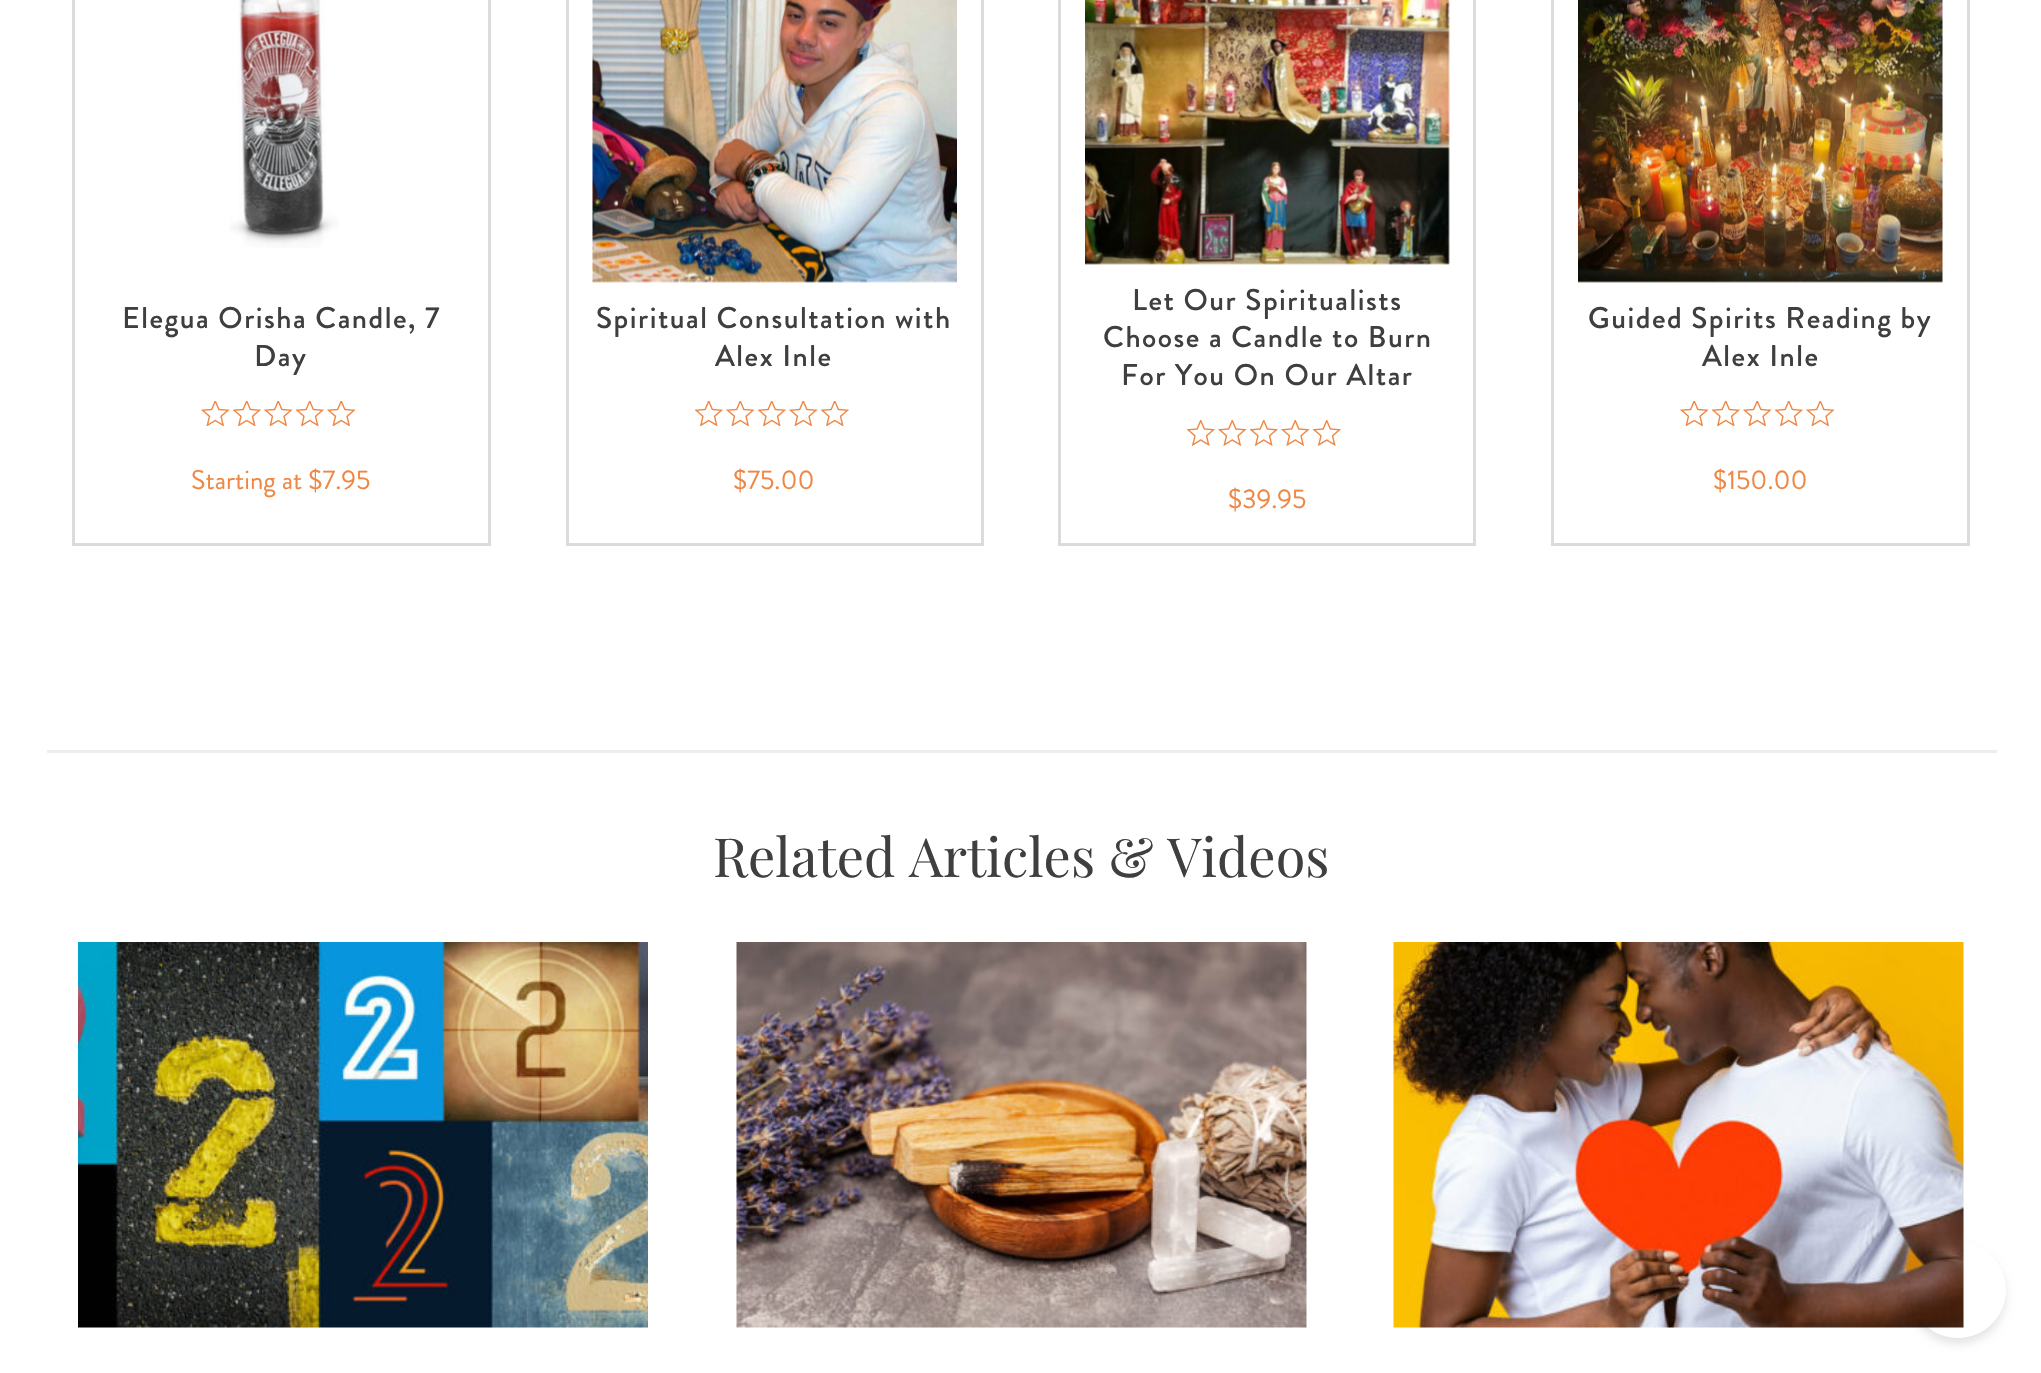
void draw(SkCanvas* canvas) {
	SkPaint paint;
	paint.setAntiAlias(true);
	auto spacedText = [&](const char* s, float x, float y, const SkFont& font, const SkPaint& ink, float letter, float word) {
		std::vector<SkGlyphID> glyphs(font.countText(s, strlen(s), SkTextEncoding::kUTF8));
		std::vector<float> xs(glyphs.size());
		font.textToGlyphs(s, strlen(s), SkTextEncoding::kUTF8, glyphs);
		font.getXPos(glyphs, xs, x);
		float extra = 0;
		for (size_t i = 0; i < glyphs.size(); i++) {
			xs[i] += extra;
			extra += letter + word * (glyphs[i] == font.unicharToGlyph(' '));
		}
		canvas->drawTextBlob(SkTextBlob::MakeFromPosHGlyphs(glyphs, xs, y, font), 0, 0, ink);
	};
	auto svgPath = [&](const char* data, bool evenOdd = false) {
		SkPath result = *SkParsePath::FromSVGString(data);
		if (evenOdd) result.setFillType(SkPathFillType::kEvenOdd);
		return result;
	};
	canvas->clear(0xffffffff);
	paint.setStroke(true);
	paint.setStrokeWidth(3);
	paint.setColor(0xffdbdbdb);
	canvas->drawRect(SkRect::MakeXYWH(73.5, -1.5, 416, 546), paint);
	canvas->drawImageRect(SkImages::DeferredFromEncodedData(SkData::MakeFromFileName("img1.png")), SkRect::MakeXYWH(229, 0, 110, 248), SkSamplingOptions());
	SkFont f1(fontMgr->matchFamilyStyle("Brandon Grotesque", SkFontStyle(500, SkFontStyle::kNormal_Width, SkFontStyle::kUpright_Slant)), 30);
	f1.setSubpixel(true);
	paint.setStroke(false);
	paint.setColor(0xff3f3f3f);
	spacedText("Elegua Orisha Candle, 7", 122, 328, f1, paint, 1.5, 0);
	spacedText("Day", 254, 366, f1, paint, 1.5, 0);
	canvas->drawImageRect(SkImages::DeferredFromEncodedData(SkData::MakeFromFileName("img2.png")), SkRect::MakeXYWH(201, 401, 29, 25), SkSamplingOptions());
	canvas->drawImageRect(SkImages::DeferredFromEncodedData(SkData::MakeFromFileName("img3.png")), SkRect::MakeXYWH(233, 401, 28, 25), SkSamplingOptions());
	canvas->drawImageRect(SkImages::DeferredFromEncodedData(SkData::MakeFromFileName("img2.png")), SkRect::MakeXYWH(264, 401, 29, 25), SkSamplingOptions());
	canvas->drawImageRect(SkImages::DeferredFromEncodedData(SkData::MakeFromFileName("img3.png")), SkRect::MakeXYWH(296, 401, 28, 25), SkSamplingOptions());
	canvas->drawImageRect(SkImages::DeferredFromEncodedData(SkData::MakeFromFileName("img2.png")), SkRect::MakeXYWH(327, 401, 29, 25), SkSamplingOptions());
	SkFont f2(fontMgr->matchFamilyStyle("Brandon Grotesque", SkFontStyle::Normal()), 27);
	f2.setSubpixel(true);
	paint.setColor(0xffee8743);
	canvas->drawString("Starting at $7.95", 191, 489, f2, paint);
	paint.setStroke(true);
	paint.setColor(0xffdbdbdb);
	canvas->drawRect(SkRect::MakeXYWH(567.5, -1.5, 415, 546), paint);
	canvas->drawImageRect(SkImages::DeferredFromEncodedData(SkData::MakeFromFileName("img4.png")), SkRect::MakeXYWH(592, 0, 365, 283), SkSamplingOptions());
	paint.setStroke(false);
	paint.setColor(0xff3f3f3f);
	spacedText("Spiritual Consultation with", 596, 328, f1, paint, 1.5, 0);
	spacedText("Alex Inle", 715, 366, f1, paint, 1.5, 0);
	canvas->drawImageRect(SkImages::DeferredFromEncodedData(SkData::MakeFromFileName("img3.png")), SkRect::MakeXYWH(695, 401, 28, 25), SkSamplingOptions());
	canvas->drawImageRect(SkImages::DeferredFromEncodedData(SkData::MakeFromFileName("img2.png")), SkRect::MakeXYWH(726, 401, 29, 25), SkSamplingOptions());
	canvas->drawImageRect(SkImages::DeferredFromEncodedData(SkData::MakeFromFileName("img3.png")), SkRect::MakeXYWH(758, 401, 28, 25), SkSamplingOptions());
	canvas->drawImageRect(SkImages::DeferredFromEncodedData(SkData::MakeFromFileName("img2.png")), SkRect::MakeXYWH(789, 401, 29, 25), SkSamplingOptions());
	canvas->drawImageRect(SkImages::DeferredFromEncodedData(SkData::MakeFromFileName("img3.png")), SkRect::MakeXYWH(821, 401, 28, 25), SkSamplingOptions());
	paint.setColor(0xffee8743);
	canvas->drawString("$75.00", 733, 489, f2, paint);
	paint.setStroke(true);
	paint.setColor(0xffdbdbdb);
	canvas->drawRect(SkRect::MakeXYWH(1059.5, -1.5, 415, 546), paint);
	canvas->drawImageRect(SkImages::DeferredFromEncodedData(SkData::MakeFromFileName("img5.png")), SkRect::MakeXYWH(1085, 0, 365, 265), SkSamplingOptions());
	paint.setStroke(false);
	paint.setColor(0xff3f3f3f);
	spacedText("Let Our Spiritualists", 1132, 310, f1, paint, 1.5, 0);
	spacedText("Choose a Candle to Burn", 1103, 347, f1, paint, 1.5, 0);
	spacedText("For You On Our Altar", 1121, 385, f1, paint, 1.5, 0);
	canvas->drawImageRect(SkImages::DeferredFromEncodedData(SkData::MakeFromFileName("img6.png")), SkRect::MakeXYWH(1187, 420, 28, 26), SkSamplingOptions());
	canvas->drawImageRect(SkImages::DeferredFromEncodedData(SkData::MakeFromFileName("img7.png")), SkRect::MakeXYWH(1218, 420, 29, 26), SkSamplingOptions());
	canvas->drawImageRect(SkImages::DeferredFromEncodedData(SkData::MakeFromFileName("img6.png")), SkRect::MakeXYWH(1250, 420, 28, 26), SkSamplingOptions());
	canvas->drawImageRect(SkImages::DeferredFromEncodedData(SkData::MakeFromFileName("img7.png")), SkRect::MakeXYWH(1281, 420, 29, 26), SkSamplingOptions());
	canvas->drawImageRect(SkImages::DeferredFromEncodedData(SkData::MakeFromFileName("img6.png")), SkRect::MakeXYWH(1313, 420, 28, 26), SkSamplingOptions());
	paint.setColor(0xffee8743);
	canvas->drawString("$39.95", 1228, 508, f2, paint);
	paint.setStroke(true);
	paint.setColor(0xffdbdbdb);
	canvas->drawRect(SkRect::MakeXYWH(1552.5, -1.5, 416, 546), paint);
	canvas->drawImageRect(SkImages::DeferredFromEncodedData(SkData::MakeFromFileName("img8.png")), SkRect::MakeXYWH(1578, 0, 365, 283), SkSamplingOptions());
	paint.setStroke(false);
	paint.setColor(0xff3f3f3f);
	spacedText("Guided Spirits Reading by", 1588, 328, f1, paint, 1.5, 0);
	spacedText("Alex Inle", 1702, 366, f1, paint, 1.5, 0);
	canvas->drawImageRect(SkImages::DeferredFromEncodedData(SkData::MakeFromFileName("img2.png")), SkRect::MakeXYWH(1680, 401, 29, 25), SkSamplingOptions());
	canvas->drawImageRect(SkImages::DeferredFromEncodedData(SkData::MakeFromFileName("img3.png")), SkRect::MakeXYWH(1712, 401, 28, 25), SkSamplingOptions());
	canvas->drawImageRect(SkImages::DeferredFromEncodedData(SkData::MakeFromFileName("img2.png")), SkRect::MakeXYWH(1743, 401, 29, 25), SkSamplingOptions());
	canvas->drawImageRect(SkImages::DeferredFromEncodedData(SkData::MakeFromFileName("img3.png")), SkRect::MakeXYWH(1775, 401, 28, 25), SkSamplingOptions());
	canvas->drawImageRect(SkImages::DeferredFromEncodedData(SkData::MakeFromFileName("img2.png")), SkRect::MakeXYWH(1806, 401, 29, 25), SkSamplingOptions());
	paint.setColor(0xffee8743);
	canvas->drawString("$150.00", 1713, 489, f2, paint);
	paint.setColor(0xffededed);
	canvas->drawRect(SkRect::MakeXYWH(47, 750, 1950, 3), paint);
	SkFont f3(fontMgr->matchFamilyStyle("Playfair Display", SkFontStyle::Normal()), 54);
	f3.setSubpixel(true);
	paint.setColor(0xff3f3f3f);
	canvas->drawString("Related Articles & Videos", 713, 877, f3, paint);
	canvas->drawImageRect(SkImages::DeferredFromEncodedData(SkData::MakeFromFileName("img9.png")), SkRect::MakeXYWH(78, 942, 570, 386), SkSamplingOptions());
	canvas->drawImageRect(SkImages::DeferredFromEncodedData(SkData::MakeFromFileName("img10.png")), SkRect::MakeXYWH(736, 942, 571, 386), SkSamplingOptions());
	canvas->drawImageRect(SkImages::DeferredFromEncodedData(SkData::MakeFromFileName("img11.png")), SkRect::MakeXYWH(1393, 942, 571, 386), SkSamplingOptions());
	canvas->save();
	canvas->clipPath(svgPath("M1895 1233H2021V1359H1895ZM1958 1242C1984.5 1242 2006 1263.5 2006 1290C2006 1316.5 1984.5 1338 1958 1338C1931.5 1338 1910 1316.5 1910 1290C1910 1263.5 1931.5 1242 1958 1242Z", true), true);
	paint.setColor(0x1a000000);
	paint.setMaskFilter(SkMaskFilter::MakeBlur(kNormal_SkBlurStyle, 4.5));
	canvas->drawRoundRect(SkRect::MakeXYWH(1910, 1248, 96, 96), 48, 48, paint);
	paint.setMaskFilter(nullptr);
	canvas->restore();
}
